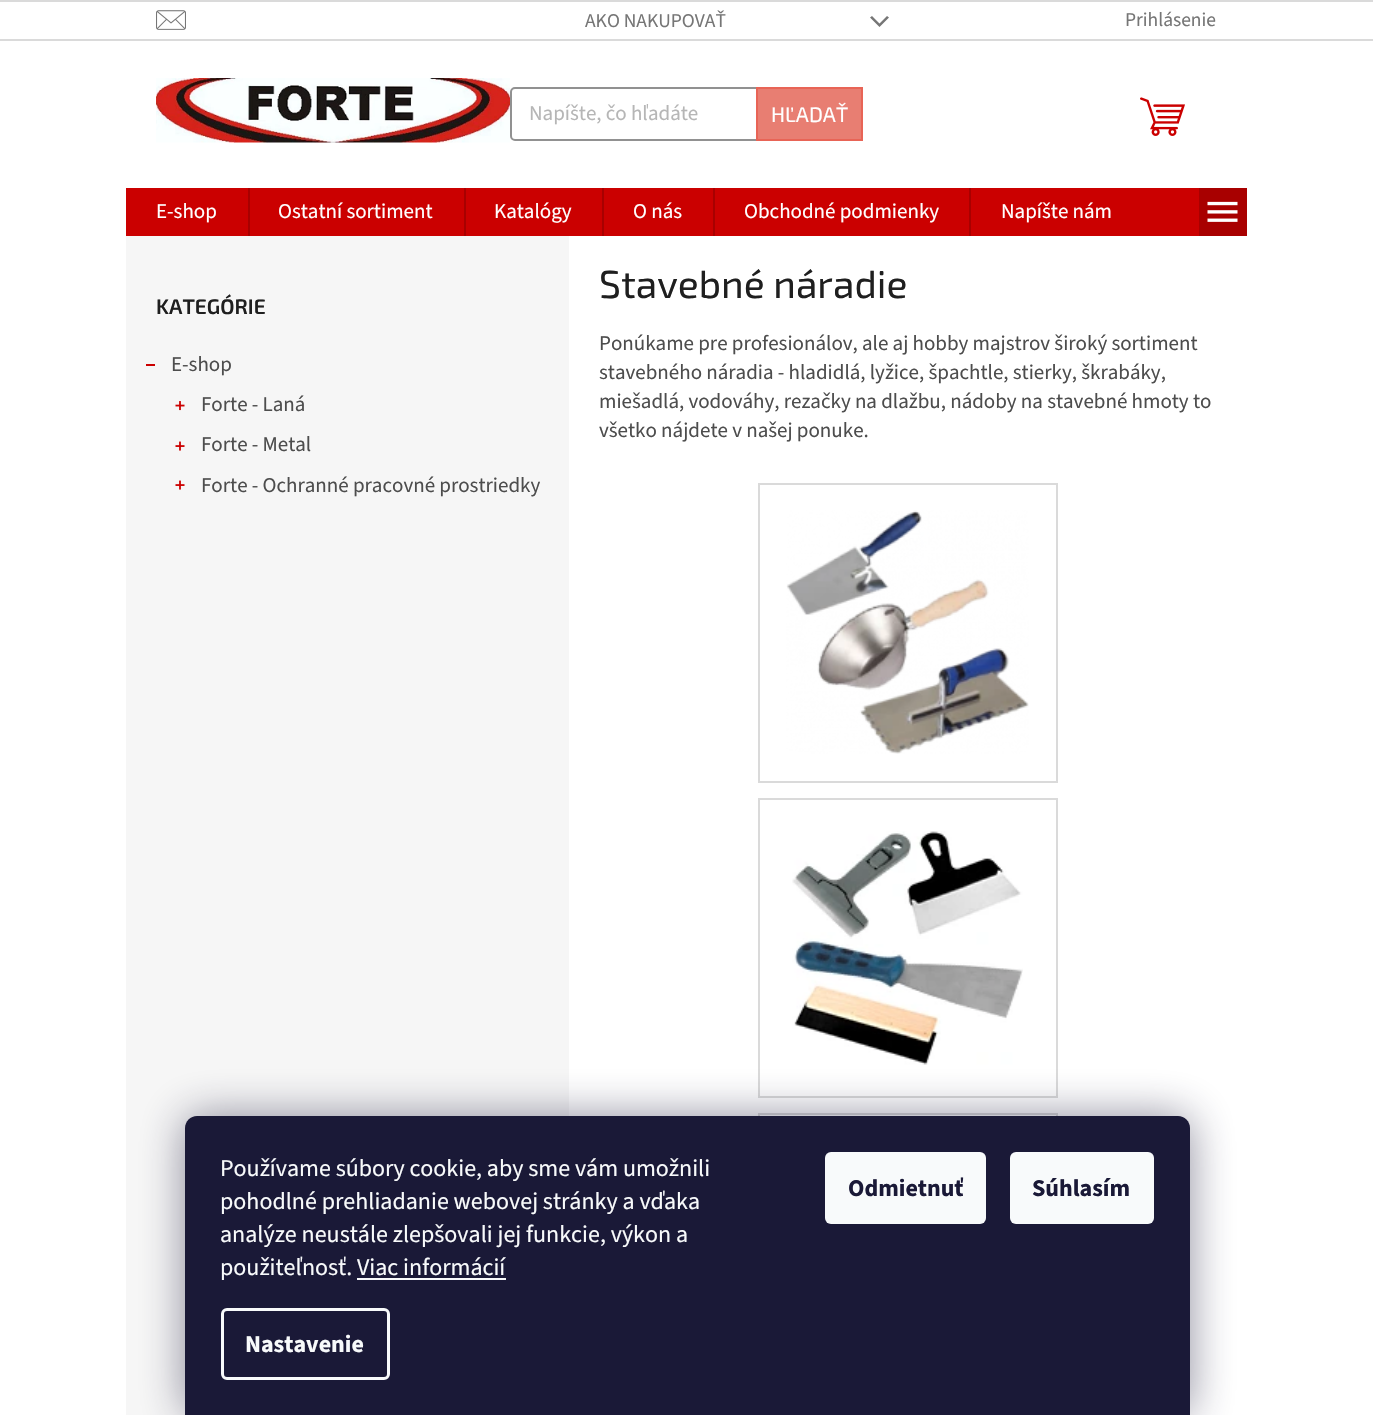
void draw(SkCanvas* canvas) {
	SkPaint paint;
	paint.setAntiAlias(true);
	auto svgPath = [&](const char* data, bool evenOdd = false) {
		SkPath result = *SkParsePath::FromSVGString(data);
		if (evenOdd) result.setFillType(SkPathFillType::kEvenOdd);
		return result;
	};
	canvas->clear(0xffffffff);
	paint.setColor(0xffdadada);
	canvas->drawRect(SkRect::MakeXYWH(0, 0, 1373, 2), paint);
	canvas->drawRect(SkRect::MakeXYWH(0, 39, 1373, 2), paint);
	canvas->drawImageRect(SkImages::DeferredFromEncodedData(SkData::MakeFromFileName("img1.png")), SkRect::MakeXYWH(156, 10, 30, 20), SkSamplingOptions());
	SkFont f1(fontMgr->matchFamilyStyle("Source Sans 3", SkFontStyle::Normal()), 19.5);
	f1.setSubpixel(true);
	paint.setColor(0xff767676);
	canvas->drawString("AKO NAKUPOVAŤ", 585, 27, f1, paint);
	canvas->drawPath(svgPath("M870 17.5L872 16L879.5 23.5L887 16L889 17.5L879.5 27Z"), paint);
	canvas->drawString("Prihlásenie", 1125, 26, f1, paint);
	canvas->drawImageRect(SkImages::DeferredFromEncodedData(SkData::MakeFromFileName("img2.png")), SkRect::MakeXYWH(156, 78, 354, 65), SkSamplingOptions());
	paint.setStroke(true);
	paint.setStrokeWidth(2);
	paint.setColor(0xff919191);
	canvas->drawRoundRect(SkRect::MakeXYWH(511, 88, 351, 52), 4, 4, paint);
	SkFont f2(fontMgr->matchFamilyStyle("Source Sans 3", SkFontStyle::Normal()), 21);
	f2.setSubpixel(true);
	paint.setStroke(false);
	paint.setColor(0xffb6b6b6);
	canvas->drawString("Napíšte, čo hľadáte", 529, 120, f2, paint);
	paint.setColor(0xffe87e72);
	canvas->drawRect(SkRect::MakeXYWH(757, 88, 105, 52), paint);
	paint.setStroke(true);
	paint.setColor(0xffe86456);
	canvas->drawRect(SkRect::MakeXYWH(757, 88, 105, 52), paint);
	SkFont f3(fontMgr->matchFamilyStyle("Exo 2", SkFontStyle::Normal()), 21);
	f3.setSubpixel(true);
	paint.setStroke(false);
	paint.setColor(0xffffffff);
	canvas->drawString("HĽADAŤ", 771, 122, f3, paint);
	canvas->drawImageRect(SkImages::DeferredFromEncodedData(SkData::MakeFromFileName("img3.png")), SkRect::MakeXYWH(1140, 97, 45, 39), SkSamplingOptions());
	paint.setColor(0xffcb0000);
	canvas->drawRect(SkRect::MakeXYWH(126, 188, 1073, 48), paint);
	paint.setColor(0xffffffff);
	canvas->drawString("E-shop", 156, 218, f2, paint);
	paint.setColor(0xffa80000);
	canvas->drawRect(SkRect::MakeXYWH(248, 188, 2, 48), paint);
	paint.setColor(0xffffffff);
	canvas->drawString("Ostatní sortiment", 278, 218, f2, paint);
	paint.setColor(0xffa80000);
	canvas->drawRect(SkRect::MakeXYWH(464, 188, 2, 48), paint);
	paint.setColor(0xffffffff);
	canvas->drawString("Katalógy", 494, 218, f2, paint);
	paint.setColor(0xffa80000);
	canvas->drawRect(SkRect::MakeXYWH(602, 188, 2, 48), paint);
	paint.setColor(0xffffffff);
	canvas->drawString("O nás", 633, 218, f2, paint);
	paint.setColor(0xffa80000);
	canvas->drawRect(SkRect::MakeXYWH(713, 188, 2, 48), paint);
	paint.setColor(0xffffffff);
	canvas->drawString("Obchodné podmienky", 744, 218, f2, paint);
	paint.setColor(0xffa80000);
	canvas->drawRect(SkRect::MakeXYWH(969, 188, 2, 48), paint);
	paint.setColor(0xffffffff);
	canvas->drawString("Napíšte nám", 1001, 218, f2, paint);
	paint.setColor(0xffa80000);
	canvas->drawRect(SkRect::MakeXYWH(1199, 188, 48, 48), paint);
	canvas->drawImageRect(SkImages::DeferredFromEncodedData(SkData::MakeFromFileName("img4.png")), SkRect::MakeXYWH(1207, 201, 31, 21), SkSamplingOptions());
	paint.setColor(0xfff6f6f6);
	canvas->drawRect(SkRect::MakeXYWH(126, 236, 443, 1179), paint);
	SkFont f4(fontMgr->matchFamilyStyle("Exo 2", SkFontStyle(600, SkFontStyle::kNormal_Width, SkFontStyle::kUpright_Slant)), 21);
	f4.setSubpixel(true);
	paint.setColor(0xff1f1f1f);
	canvas->drawString("KATEGÓRIE", 156, 314, f4, paint);
	paint.setColor(0xffcb0000);
	canvas->drawRect(SkRect::MakeXYWH(146, 364, 9, 2), paint);
	paint.setColor(0xff4d4d4d);
	canvas->drawString("E-shop", 171, 371, f2, paint);
	canvas->drawImageRect(SkImages::DeferredFromEncodedData(SkData::MakeFromFileName("img5.png")), SkRect::MakeXYWH(175, 401, 10, 10), SkSamplingOptions());
	canvas->drawString("Forte - Laná", 201, 411, f2, paint);
	canvas->drawImageRect(SkImages::DeferredFromEncodedData(SkData::MakeFromFileName("img6.png")), SkRect::MakeXYWH(175, 441, 10, 10), SkSamplingOptions());
	canvas->drawString("Forte - Metal", 201, 451, f2, paint);
	canvas->drawImageRect(SkImages::DeferredFromEncodedData(SkData::MakeFromFileName("img6.png")), SkRect::MakeXYWH(175, 480, 10, 10), SkSamplingOptions());
	canvas->drawString("Forte - Ochranné pracovné prostriedky", 201, 492, f2, paint);
	SkFont f5(fontMgr->matchFamilyStyle("Exo 2", SkFontStyle::Normal()), 39);
	f5.setSubpixel(true);
	paint.setColor(0xff1f1f1f);
	canvas->drawString("Stavebné náradie", 599, 298, f5, paint);
	paint.setColor(0xff4d4d4d);
	canvas->drawString("Ponúkame pre profesionálov, ale aj hobby majstrov široký sortiment", 599, 350, f2, paint);
	canvas->drawString("stavebného náradia - hladidlá, lyžice, špachtle, stierky, škrabáky,", 599, 379, f2, paint);
	canvas->drawString("miešadlá, vodováhy, rezačky na dlažbu, nádoby na stavebné hmoty to", 599, 408, f2, paint);
	canvas->drawString("všetko nájdete v našej ponuke.", 599, 437, f2, paint);
	paint.setStroke(true);
	paint.setColor(0xffdadada);
	canvas->drawRect(SkRect::MakeXYWH(759, 484, 298, 298), paint);
	canvas->drawImageRect(SkImages::DeferredFromEncodedData(SkData::MakeFromFileName("img7.png")), SkRect::MakeXYWH(786, 510, 243, 244), SkSamplingOptions());
	canvas->drawRect(SkRect::MakeXYWH(759, 799, 298, 298), paint);
	canvas->drawImageRect(SkImages::DeferredFromEncodedData(SkData::MakeFromFileName("img8.png")), SkRect::MakeXYWH(792, 831, 231, 234), SkSamplingOptions());
	canvas->drawRect(SkRect::MakeXYWH(759, 1114, 298, 298), paint);
	paint.setStroke(false);
	paint.setColor(0x801b1939);
	paint.setMaskFilter(SkMaskFilter::MakeBlur(kNormal_SkBlurStyle, 22.5));
	canvas->drawRoundRect(SkRect::MakeXYWH(185, 1116, 1005, 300), 12, 12, paint);
	paint.setMaskFilter(nullptr);
	paint.setColor(0xff1a1937);
	canvas->drawPath(svgPath("M197 1116H1178C1184.5 1116 1190 1121.5 1190 1128V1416H185V1128C185 1121.5 190.5 1116 197 1116Z"), paint);
	SkFont f6(fontMgr->matchFamilyStyle("Source Sans 3", SkFontStyle::Normal()), 24);
	f6.setSubpixel(true);
	paint.setColor(0xfff8fafb);
	canvas->drawString("Používame súbory cookie, aby sme vám umožnili", 220, 1176, f6, paint);
	canvas->drawString("pohodlné prehliadanie webovej stránky a vďaka", 220, 1209, f6, paint);
	canvas->drawString("analýze neustále zlepšovali jej funkcie, výkon a", 220, 1242, f6, paint);
	canvas->drawString("použiteľnosť. Viac informácií", 220, 1275, f6, paint);
	canvas->drawRect(SkRect::MakeXYWH(357, 1278, 149, 2), paint);
	paint.setStroke(true);
	paint.setStrokeWidth(3);
	canvas->drawRoundRect(SkRect::MakeXYWH(222.5, 1309.5, 166, 69), 4.5, 4.5, paint);
	SkFont f7(fontMgr->matchFamilyStyle("Source Sans 3", SkFontStyle::Bold()), 24);
	f7.setSubpixel(true);
	paint.setStroke(false);
	canvas->drawString("Nastavenie", 245, 1352, f7, paint);
	canvas->drawRoundRect(SkRect::MakeXYWH(825, 1152, 161, 72), 6, 6, paint);
	paint.setColor(0xff1a1937);
	canvas->drawString("Odmietnuť", 848, 1196, f7, paint);
	paint.setColor(0xfff8fafb);
	canvas->drawRoundRect(SkRect::MakeXYWH(1010, 1152, 144, 72), 6, 6, paint);
	paint.setColor(0xff1a1937);
	canvas->drawString("Súhlasím", 1032, 1196, f7, paint);
}
